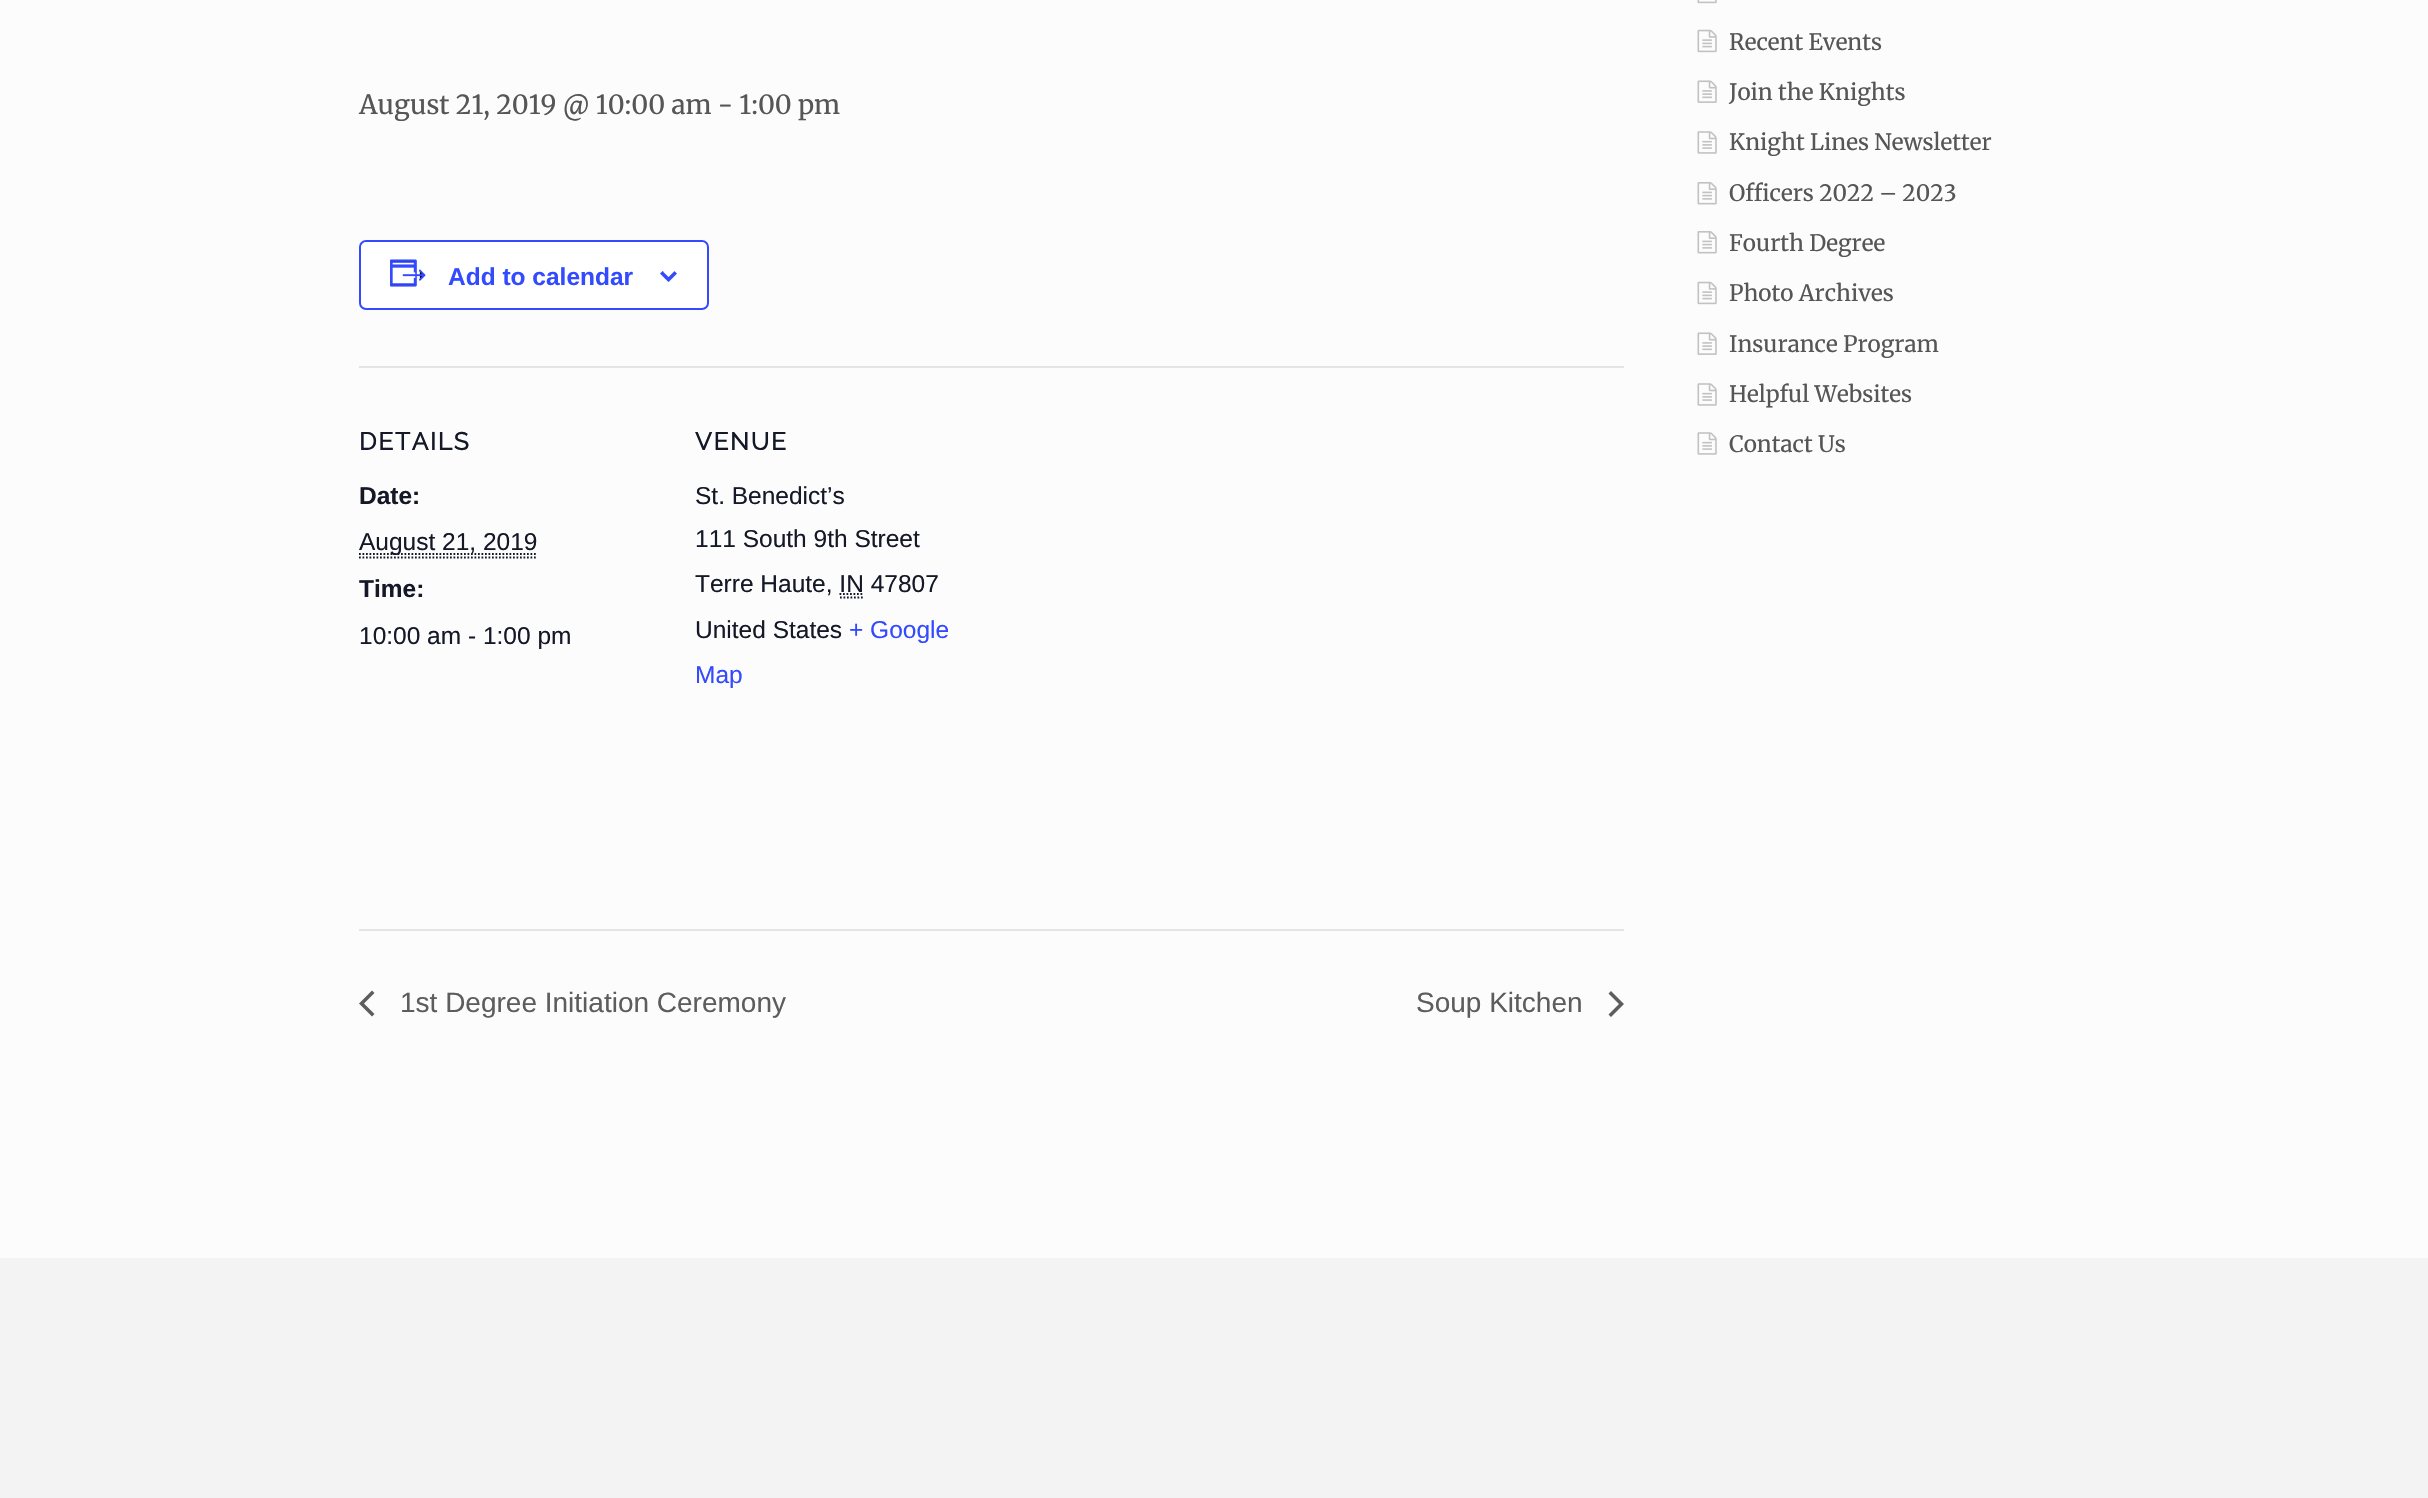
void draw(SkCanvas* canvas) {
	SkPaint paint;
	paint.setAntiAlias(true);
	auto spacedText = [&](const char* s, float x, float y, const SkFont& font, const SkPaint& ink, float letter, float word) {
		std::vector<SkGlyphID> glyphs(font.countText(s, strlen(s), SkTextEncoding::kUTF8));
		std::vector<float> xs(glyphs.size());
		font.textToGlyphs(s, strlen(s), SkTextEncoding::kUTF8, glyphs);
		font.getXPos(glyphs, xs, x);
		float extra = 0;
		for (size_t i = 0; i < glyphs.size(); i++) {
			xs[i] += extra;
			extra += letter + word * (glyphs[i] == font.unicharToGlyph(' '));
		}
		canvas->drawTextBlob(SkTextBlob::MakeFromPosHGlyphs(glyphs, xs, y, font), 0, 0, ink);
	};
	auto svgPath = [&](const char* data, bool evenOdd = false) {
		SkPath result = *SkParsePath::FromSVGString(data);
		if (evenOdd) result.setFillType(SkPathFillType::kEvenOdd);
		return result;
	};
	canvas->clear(0xfffcfcfc);
	SkFont f1(fontMgr->matchFamilyStyle("Merriweather", SkFontStyle(300, SkFontStyle::kNormal_Width, SkFontStyle::kUpright_Slant)), 26.25);
	f1.setSubpixel(true);
	paint.setColor(0xff565656);
	canvas->drawString("August 21, 2019 @ 10:00 am - 1:00 pm", 359, 114, f1, paint);
	paint.setColor(0xffffffff);
	canvas->drawRoundRect(SkRect::MakeXYWH(360, 241, 348, 68), 6, 6, paint);
	paint.setStroke(true);
	paint.setStrokeWidth(2);
	paint.setColor(0xff334aff);
	canvas->drawRoundRect(SkRect::MakeXYWH(360, 241, 348, 68), 6, 6, paint);
	canvas->drawImageRect(SkImages::DeferredFromEncodedData(SkData::MakeFromFileName("img1.png")), SkRect::MakeXYWH(390, 259, 36, 28), SkSamplingOptions());
	SkFont f2(fontMgr->matchFamilyStyle("Liberation Sans", SkFontStyle::Bold()), 24.5);
	f2.setSubpixel(true);
	paint.setStroke(false);
	canvas->drawString("Add to calendar", 448, 285, f2, paint);
	canvas->drawImageRect(SkImages::DeferredFromEncodedData(SkData::MakeFromFileName("img2.png")), SkRect::MakeXYWH(660, 271, 17, 11), SkSamplingOptions());
	paint.setColor(0xffe4e4e4);
	canvas->drawRect(SkRect::MakeXYWH(359, 366, 1265, 2), paint);
	SkFont f3(fontMgr->matchFamilyStyle("Raleway", SkFontStyle::Bold()), 24.5);
	f3.setSubpixel(true);
	paint.setColor(0xff141827);
	spacedText("DETAILS", 359, 450, f3, paint, 1.75, 0);
	canvas->drawString("Date:", 359, 504, f2, paint);
	paint.setStroke(true);
	paint.setStrokeWidth(1.8);
	paint.setPathEffect(SkDashPathEffect::Make({{1.75f, 1.75f}}, 0));
	canvas->drawPath(svgPath("M359 554H537.5"), paint);
	paint.setPathEffect(nullptr);
	SkFont f4(fontMgr->matchFamilyStyle("Liberation Sans", SkFontStyle::Normal()), 24.5);
	f4.setSubpixel(true);
	paint.setStroke(false);
	canvas->drawString("August 21, 2019", 359, 550, f4, paint);
	paint.setStroke(true);
	paint.setPathEffect(SkDashPathEffect::Make({{1.75f, 1.75f}}, 0));
	canvas->drawPath(svgPath("M359 557.5H537"), paint);
	paint.setPathEffect(nullptr);
	paint.setStroke(false);
	canvas->drawString("Time:", 359, 597, f2, paint);
	canvas->drawString("10:00 am - 1:00 pm", 359, 644, f4, paint);
	spacedText("VENUE", 695, 450, f3, paint, 1.75, 0);
	canvas->drawString("St. Benedict’s", 695, 504, f4, paint);
	canvas->drawString("111 South 9th Street", 695, 547, f4, paint);
	canvas->drawString("Terre Haute, IN 47807", 695, 592, f4, paint);
	paint.setStroke(true);
	paint.setPathEffect(SkDashPathEffect::Make({{1.75f, 1.75f}}, 0));
	canvas->drawPath(svgPath("M840 597.5H864.5M839.5 594H864"), paint);
	paint.setPathEffect(nullptr);
	paint.setStroke(false);
	canvas->drawString("United States", 695, 638, f4, paint);
	paint.setColor(0xff334aff);
	canvas->drawString("+ Google", 849, 638, f4, paint);
	canvas->drawString("Map", 695, 683, f4, paint);
	paint.setColor(0xffe4e4e4);
	canvas->drawRect(SkRect::MakeXYWH(359, 929, 1265, 2), paint);
	paint.setColor(0xff5d5d5d);
	canvas->drawPath(svgPath("M374.5 1014L372 1016.5L359 1003.5L372 990.5L374.5 993L364 1003.5Z"), paint);
	SkFont f5(fontMgr->matchFamilyStyle("Liberation Sans", SkFontStyle::Normal()), 28);
	f5.setSubpixel(true);
	canvas->drawString("1st Degree Initiation Ceremony", 400, 1012, f5, paint);
	canvas->drawString("Soup Kitchen", 1416, 1012, f5, paint);
	canvas->drawPath(svgPath("M1608.5 993.5L1611 991L1624 1004L1611 1017L1608.5 1014.5L1619 1004Z"), paint);
	canvas->drawImageRect(SkImages::DeferredFromEncodedData(SkData::MakeFromFileName("img3.png")), SkRect::MakeXYWH(1697, 0, 20, 4), SkSamplingOptions());
	canvas->drawImageRect(SkImages::DeferredFromEncodedData(SkData::MakeFromFileName("img4.png")), SkRect::MakeXYWH(1697, 29, 20, 24), SkSamplingOptions());
	SkFont f6(fontMgr->matchFamilyStyle("Merriweather", SkFontStyle(300, SkFontStyle::kNormal_Width, SkFontStyle::kUpright_Slant)), 22.5);
	f6.setSubpixel(true);
	paint.setColor(0xff565656);
	canvas->drawString("Recent Events", 1729, 50, f6, paint);
	canvas->drawImageRect(SkImages::DeferredFromEncodedData(SkData::MakeFromFileName("img5.png")), SkRect::MakeXYWH(1697, 80, 20, 23), SkSamplingOptions());
	canvas->drawString("Join the Knights", 1729, 100, f6, paint);
	canvas->drawImageRect(SkImages::DeferredFromEncodedData(SkData::MakeFromFileName("img6.png")), SkRect::MakeXYWH(1697, 131, 20, 23), SkSamplingOptions());
	canvas->drawString("Knight Lines Newsletter", 1729, 150, f6, paint);
	canvas->drawImageRect(SkImages::DeferredFromEncodedData(SkData::MakeFromFileName("img7.png")), SkRect::MakeXYWH(1697, 182, 20, 23), SkSamplingOptions());
	canvas->drawString("Officers 2022 – 2023", 1729, 201, f6, paint);
	canvas->drawImageRect(SkImages::DeferredFromEncodedData(SkData::MakeFromFileName("img7.png")), SkRect::MakeXYWH(1697, 231, 20, 23), SkSamplingOptions());
	canvas->drawString("Fourth Degree", 1729, 251, f6, paint);
	canvas->drawImageRect(SkImages::DeferredFromEncodedData(SkData::MakeFromFileName("img4.png")), SkRect::MakeXYWH(1697, 281, 20, 24), SkSamplingOptions());
	canvas->drawString("Photo Archives", 1729, 301, f6, paint);
	canvas->drawImageRect(SkImages::DeferredFromEncodedData(SkData::MakeFromFileName("img5.png")), SkRect::MakeXYWH(1697, 332, 20, 23), SkSamplingOptions());
	canvas->drawString("Insurance Program", 1729, 352, f6, paint);
	canvas->drawImageRect(SkImages::DeferredFromEncodedData(SkData::MakeFromFileName("img6.png")), SkRect::MakeXYWH(1697, 383, 20, 23), SkSamplingOptions());
	canvas->drawString("Helpful Websites", 1729, 402, f6, paint);
	canvas->drawImageRect(SkImages::DeferredFromEncodedData(SkData::MakeFromFileName("img6.png")), SkRect::MakeXYWH(1697, 432, 20, 23), SkSamplingOptions());
	canvas->drawString("Contact Us", 1729, 452, f6, paint);
	paint.setColor(0xfff3f3f3);
	canvas->drawRect(SkRect::MakeXYWH(0, 1258, 2428, 240), paint);
}
